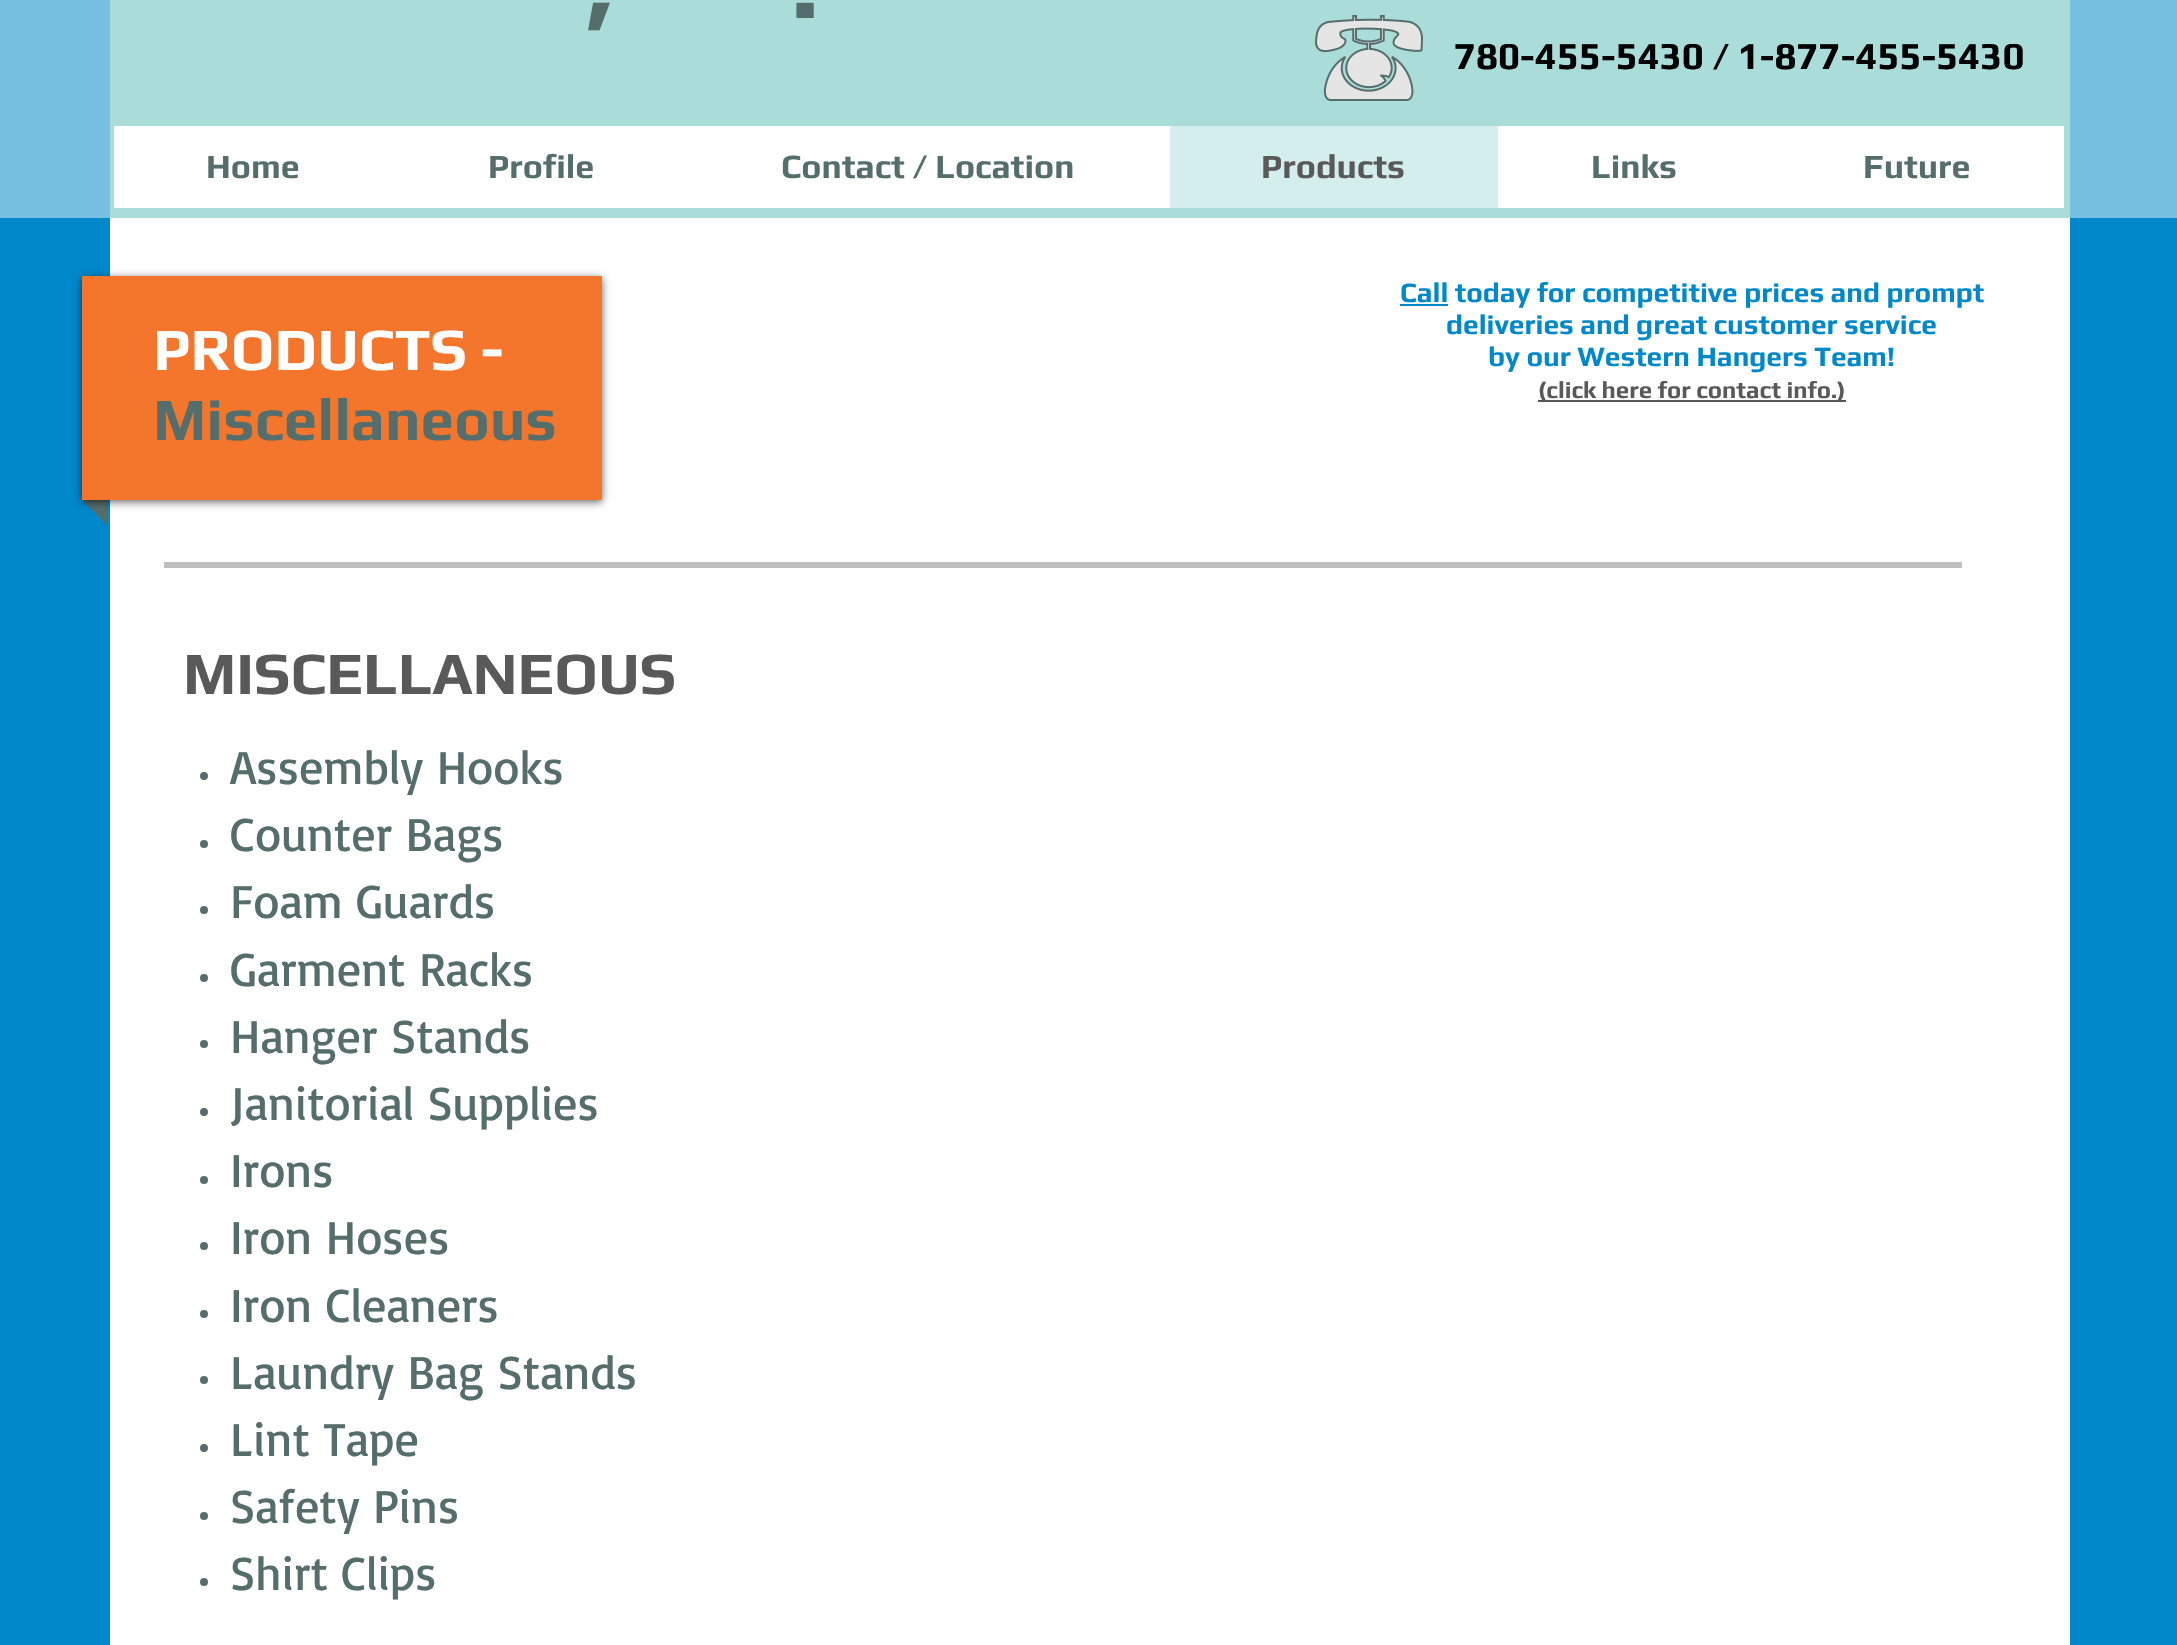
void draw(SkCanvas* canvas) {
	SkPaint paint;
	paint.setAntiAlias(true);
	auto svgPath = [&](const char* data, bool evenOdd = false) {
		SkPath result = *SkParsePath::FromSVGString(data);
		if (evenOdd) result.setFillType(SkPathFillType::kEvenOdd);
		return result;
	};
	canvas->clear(0xff0088cb);
	paint.setColor(0xff78c0e1);
	canvas->drawRect(SkRect::MakeXYWH(0, 0, 2177, 218), paint);
	paint.setColor(0xffaaddd9);
	canvas->drawRect(SkRect::MakeXYWH(110, 0, 1960, 218), paint);
	SkFont f1(fontMgr->matchFamilyStyle("Play", SkFontStyle::Bold()), 110);
	f1.setSubpixel(true);
	paint.setColor(0xff556e6c);
	canvas->drawString(",", 586, 18, f1, paint);
	canvas->drawString(".", 791, 18, f1, paint);
	canvas->drawImageRect(SkImages::DeferredFromEncodedData(SkData::MakeFromFileName("img1.png")), SkRect::MakeXYWH(1315, 15, 108, 86), SkSamplingOptions());
	SkFont f2(fontMgr->matchFamilyStyle("Play", SkFontStyle::Bold()), 38);
	f2.setSubpixel(true);
	paint.setColor(0xff000000);
	canvas->drawString("780-455-5430 / 1-877-455-5430", 1454, 69, f2, paint);
	paint.setColor(0xffffffff);
	canvas->drawRect(SkRect::MakeXYWH(114, 126, 1950, 82), paint);
	SkFont f3(fontMgr->matchFamilyStyle("Play", SkFontStyle::Bold()), 34);
	f3.setSubpixel(true);
	paint.setColor(0xff556e6c);
	canvas->drawString("Home", 206, 178, f3, paint);
	canvas->drawString("Profile", 488, 178, f3, paint);
	canvas->drawString("Contact / Location", 781, 178, f3, paint);
	paint.setColor(0xffd3eeec);
	canvas->drawRect(SkRect::MakeXYWH(1170, 126, 328, 82), paint);
	paint.setColor(0xff595959);
	canvas->drawString("Products", 1261, 178, f3, paint);
	paint.setColor(0xff556e6c);
	canvas->drawString("Links", 1591, 178, f3, paint);
	canvas->drawString("Future", 1863, 178, f3, paint);
	paint.setColor(0xffffffff);
	canvas->drawRect(SkRect::MakeXYWH(110, 218, 1960, 1427), paint);
	paint.setColor(0xff556e6c);
	canvas->drawPath(svgPath("M82 500H108V526Z"), paint);
	paint.setColor(0x99000000);
	paint.setMaskFilter(SkMaskFilter::MakeBlur(kNormal_SkBlurStyle, 4));
	canvas->drawRect(SkRect::MakeXYWH(82, 278, 520, 224), paint);
	paint.setMaskFilter(nullptr);
	paint.setColor(0xfff4752c);
	canvas->drawRect(SkRect::MakeXYWH(82, 276, 520, 224), paint);
	SkFont f4(fontMgr->matchFamilyStyle("Play", SkFontStyle::Bold()), 60);
	f4.setSubpixel(true);
	paint.setColor(0xffffffff);
	canvas->drawString("PRODUCTS -", 153, 370, f4, paint);
	paint.setColor(0xff556e6c);
	canvas->drawString("Miscellaneous", 153, 440, f4, paint);
	paint.setColor(0xff0088cb);
	canvas->drawRect(SkRect::MakeXYWH(1400, 304, 48, 2), paint);
	SkFont f5(fontMgr->matchFamilyStyle("Play", SkFontStyle::Bold()), 28);
	f5.setSubpixel(true);
	canvas->drawString("Call today for competitive prices and prompt", 1400, 302, f5, paint);
	canvas->drawString("deliveries and great customer service", 1446, 334, f5, paint);
	canvas->drawString("by our Western Hangers Team!", 1488, 366, f5, paint);
	paint.setColor(0xff595959);
	canvas->drawRect(SkRect::MakeXYWH(1538, 400, 308, 2), paint);
	SkFont f6(fontMgr->matchFamilyStyle("Play", SkFontStyle::Bold()), 24);
	f6.setSubpixel(true);
	canvas->drawString("(click here for contact info.)", 1538, 398, f6, paint);
	paint.setColor(0xffbfbfbf);
	canvas->drawRect(SkRect::MakeXYWH(164, 562, 1798, 6), paint);
	paint.setColor(0xff595959);
	canvas->drawString("MISCELLANEOUS", 183, 694, f4, paint);
	paint.setColor(0xff556e6c);
	canvas->drawCircle(204, 776, 4, paint);
	SkFont f7(fontMgr->matchFamilyStyle("Basic", SkFontStyle::Normal()), 48);
	f7.setSubpixel(true);
	canvas->drawString("Assembly Hooks", 230, 784, f7, paint);
	canvas->drawCircle(204, 844, 4, paint);
	canvas->drawString("Counter Bags", 230, 851, f7, paint);
	canvas->drawCircle(204, 910, 4, paint);
	canvas->drawString("Foam Guards", 230, 918, f7, paint);
	canvas->drawCircle(204, 978, 4, paint);
	canvas->drawString("Garment Racks", 230, 986, f7, paint);
	canvas->drawCircle(204, 1044, 4, paint);
	canvas->drawString("Hanger Stands", 230, 1053, f7, paint);
	canvas->drawCircle(204, 1112, 4, paint);
	canvas->drawString("Janitorial Supplies", 230, 1120, f7, paint);
	canvas->drawCircle(204, 1180, 4, paint);
	canvas->drawString("Irons", 230, 1187, f7, paint);
	canvas->drawCircle(204, 1246, 4, paint);
	canvas->drawString("Iron Hoses", 230, 1254, f7, paint);
	canvas->drawCircle(204, 1314, 4, paint);
	canvas->drawString("Iron Cleaners", 230, 1322, f7, paint);
	canvas->drawCircle(204, 1380, 4, paint);
	canvas->drawString("Laundry Bag Stands", 230, 1389, f7, paint);
	canvas->drawCircle(204, 1448, 4, paint);
	canvas->drawString("Lint Tape", 230, 1456, f7, paint);
	canvas->drawCircle(204, 1516, 4, paint);
	canvas->drawString("Safety Pins", 230, 1523, f7, paint);
	canvas->drawCircle(204, 1582, 4, paint);
	canvas->drawString("Shirt Clips", 230, 1590, f7, paint);
}
